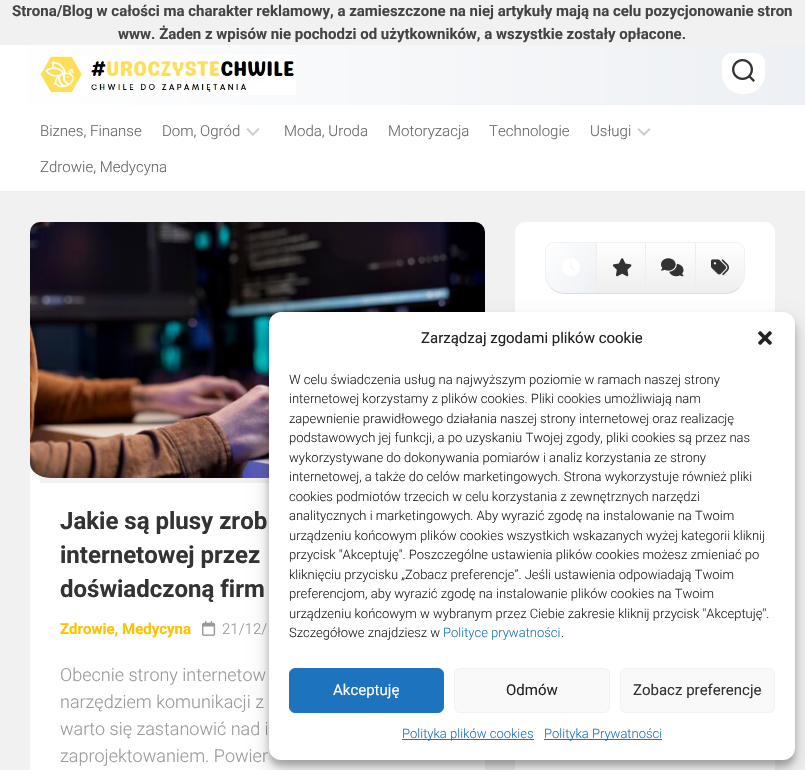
void draw(SkCanvas* canvas) {
	SkPaint paint;
	paint.setAntiAlias(true);
	auto svgPath = [&](const char* data, bool evenOdd = false) {
		SkPath result = *SkParsePath::FromSVGString(data);
		if (evenOdd) result.setFillType(SkPathFillType::kEvenOdd);
		return result;
	};
	canvas->clear(0xfff1f1f1);
	SkFont f1(fontMgr->matchFamilyStyle("Roboto", SkFontStyle::Bold()), 15);
	f1.setSubpixel(true);
	paint.setColor(0xff444444);
	canvas->drawString("Strona/Blog w całości ma charakter reklamowy, a zamieszczone na niej artykuły mają na celu pozycjonowanie stron", 12, 16, f1, paint);
	canvas->drawString("www. Żaden z wpisów nie pochodzi od użytkowników, a wszystkie zostały opłacone.", 118, 39, f1, paint);
	{
		const SkColor colors[] = {0xffffffff, 0xffedf0f4};
		const float stops[] = {0, 1};
		const SkPoint ends[] = {{0, 119}, {805, 118}};
		paint.setShader(SkGradientShader::MakeLinear(ends, colors, stops, 2, SkTileMode::kClamp));
		paint.setAlpha(255);
	}
	canvas->drawRect(SkRect::MakeXYWH(0, 45, 805, 60), paint);
	canvas->drawImageRect(SkImages::DeferredFromEncodedData(SkData::MakeFromFileName("img1.png")), SkRect::MakeXYWH(40, 55, 256, 40), SkSamplingOptions());
	paint.setShader(nullptr);
	paint.setColor(0xffffffff);
	canvas->drawPath(svgPath("M732 53H755C760.5 53 765 57.5 765 63V74C765 85 756 94 745 94H742C731 94 722 85 722 74V63C722 57.5 726.5 53 732 53Z"), paint);
	canvas->drawImageRect(SkImages::DeferredFromEncodedData(SkData::MakeFromFileName("img2.png")), SkRect::MakeXYWH(732, 59, 23, 23), SkSamplingOptions());
	canvas->drawRect(SkRect::MakeXYWH(0, 105, 805, 86), paint);
	paint.setColor(0xffeeeeee);
	canvas->drawRect(SkRect::MakeXYWH(0, 191, 805, 1), paint);
	SkFont f2(fontMgr->matchFamilyStyle("Roboto", SkFontStyle(300, SkFontStyle::kNormal_Width, SkFontStyle::kUpright_Slant)), 15);
	f2.setSubpixel(true);
	paint.setColor(0xff666666);
	canvas->drawString("Biznes, Finanse", 40, 136, f2, paint);
	canvas->drawString("Dom, Ogród", 162, 136, f2, paint);
	canvas->drawImageRect(SkImages::DeferredFromEncodedData(SkData::MakeFromFileName("img3.png")), SkRect::MakeXYWH(246, 128, 14, 8), SkSamplingOptions());
	canvas->drawString("Moda, Uroda", 284, 136, f2, paint);
	canvas->drawString("Motoryzacja", 388, 136, f2, paint);
	canvas->drawString("Technologie", 489, 136, f2, paint);
	canvas->drawString("Usługi", 590, 136, f2, paint);
	canvas->drawImageRect(SkImages::DeferredFromEncodedData(SkData::MakeFromFileName("img3.png")), SkRect::MakeXYWH(637, 128, 14, 8), SkSamplingOptions());
	canvas->drawString("Zdrowie, Medycyna", 40, 172, f2, paint);
	paint.setColor(0xffffffff);
	canvas->drawPath(svgPath("M40 222H475C480.5 222 485 226.5 485 232V770C485 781 476 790 465 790H50C39 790 30 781 30 770V232C30 226.5 34.5 222 40 222Z"), paint);
	paint.setColor(0xfff5f5f5);
	canvas->drawPath(svgPath("M40 222H475C480.5 222 485 226.5 485 232V463C485 474 476 483 465 483H50C39 483 30 474 30 463V232C30 226.5 34.5 222 40 222Z"), paint);
	paint.setColor(0xfff1f1f1);
	canvas->drawRect(SkRect::MakeXYWH(40, 478, 229, 5), paint);
	canvas->drawImageRect(SkImages::DeferredFromEncodedData(SkData::MakeFromFileName("img4.png")), SkRect::MakeXYWH(30, 222, 455, 256), SkSamplingOptions());
	SkFont f3(fontMgr->matchFamilyStyle("Roboto", SkFontStyle::Bold()), 24);
	f3.setSubpixel(true);
	paint.setColor(0xff333333);
	canvas->drawString("Jakie są plusy zrob", 60, 529, f3, paint);
	canvas->drawString("internetowej przez", 60, 563, f3, paint);
	canvas->drawString("doświadczoną firm", 60, 597, f3, paint);
	paint.setColor(0xffffc100);
	canvas->drawString("Zdrowie, Medycyna", 60, 634, f1, paint);
	canvas->drawImageRect(SkImages::DeferredFromEncodedData(SkData::MakeFromFileName("img5.png")), SkRect::MakeXYWH(202, 621, 14, 15), SkSamplingOptions());
	paint.setColor(0xff999999);
	canvas->drawString("21/12/", 222, 634, f2, paint);
	SkFont f4(fontMgr->matchFamilyStyle("Roboto", SkFontStyle(300, SkFontStyle::kNormal_Width, SkFontStyle::kUpright_Slant)), 18);
	f4.setSubpixel(true);
	canvas->drawString("Obecnie strony internetow", 60, 681, f4, paint);
	canvas->drawString("narzędziem komunikacji z", 60, 708, f4, paint);
	canvas->drawString("warto się zastanowić nad i", 60, 735, f4, paint);
	canvas->drawString("zaprojektowaniem. Powier", 60, 762, f4, paint);
	paint.setColor(0xffffffff);
	canvas->drawPath(svgPath("M525 222H765C770.5 222 775 226.5 775 232V770C775 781 766 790 755 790H535C524 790 515 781 515 770V232C515 226.5 519.5 222 525 222Z"), paint);
	canvas->save();
	canvas->clipPath(svgPath("M555 242H735C740.5 242 745 246.5 745 252V274C745 285 736 294 725 294H565C554 294 545 285 545 274V252C545 246.5 549.5 242 555 242Z"), true);
	{
		const SkColor colors[] = {0xffeeeeee, 0xffffffff};
		const float stops[] = {0, 1};
		const SkPoint ends[] = {{645, 293}, {645, 243}};
		paint.setShader(SkGradientShader::MakeLinear(ends, colors, stops, 2, SkTileMode::kClamp));
		paint.setAlpha(255);
	}
	canvas->drawRect(SkRect::MakeXYWH(545, 243, 200, 50), paint);
	canvas->restore();
	paint.setStroke(true);
	paint.setStrokeWidth(1);
	paint.setShader(nullptr);
	paint.setColor(0xffdddddd);
	canvas->drawPath(svgPath("M739 288C735 291.5 730 293.5 725 293.5H565C560 293.5 555 291.5 551 288"), paint);
	paint.setColor(0xfff1f1f1);
	canvas->drawPath(svgPath("M551 288C544.5 281 545.5 272 545.5 263V250C546.5 245.5 550.5 242.5 555 242.5H735C739.5 242.5 743.5 245.5 744.5 250V263C744.5 272 745.5 281 739 288"), paint);
	paint.setStroke(false);
	{
		const SkColor colors[] = {0xffffffff, 0xffedf0f4};
		const float stops[] = {0, 1};
		const SkPoint ends[] = {{544, 245}, {598, 291}};
		paint.setShader(SkGradientShader::MakeLinear(ends, colors, stops, 2, SkTileMode::kClamp));
		paint.setAlpha(255);
	}
	canvas->drawPath(svgPath("M555 243H596V293H565C554.5 293 546 284.5 546 274V252C546 247 550 243 555 243Z"), paint);
	canvas->drawImageRect(SkImages::DeferredFromEncodedData(SkData::MakeFromFileName("img6.png")), SkRect::MakeXYWH(562, 258, 18, 18), SkSamplingOptions());
	paint.setShader(nullptr);
	paint.setColor(0xffeeeeee);
	canvas->drawRect(SkRect::MakeXYWH(596, 243, 1, 50), paint);
	canvas->drawImageRect(SkImages::DeferredFromEncodedData(SkData::MakeFromFileName("img7.png")), SkRect::MakeXYWH(612, 258, 20, 19), SkSamplingOptions());
	canvas->drawRect(SkRect::MakeXYWH(645, 243, 1, 50), paint);
	canvas->drawImageRect(SkImages::DeferredFromEncodedData(SkData::MakeFromFileName("img8.png")), SkRect::MakeXYWH(661, 258, 23, 19), SkSamplingOptions());
	canvas->drawRect(SkRect::MakeXYWH(695, 243, 1, 50), paint);
	canvas->drawImageRect(SkImages::DeferredFromEncodedData(SkData::MakeFromFileName("img9.png")), SkRect::MakeXYWH(711, 259, 18, 17), SkSamplingOptions());
	paint.setColor(0x3b000000);
	paint.setMaskFilter(SkMaskFilter::MakeBlur(kNormal_SkBlurStyle, 3));
	canvas->drawRoundRect(SkRect::MakeXYWH(269, 318, 526, 448), 12, 12, paint);
	paint.setMaskFilter(nullptr);
	paint.setColor(0x30000000);
	paint.setMaskFilter(SkMaskFilter::MakeBlur(kNormal_SkBlurStyle, 10));
	canvas->drawRoundRect(SkRect::MakeXYWH(269, 322, 526, 448), 12, 12, paint);
	paint.setMaskFilter(nullptr);
	paint.setColor(0xffffffff);
	canvas->drawRoundRect(SkRect::MakeXYWH(269, 312, 526, 448), 12, 12, paint);
	SkFont f5(fontMgr->matchFamilyStyle("Roboto", SkFontStyle::Normal()), 15);
	f5.setSubpixel(true);
	paint.setColor(0xff222222);
	canvas->drawString("Zarządzaj zgodami plików cookie", 421, 343, f5, paint);
	canvas->drawImageRect(SkImages::DeferredFromEncodedData(SkData::MakeFromFileName("img10.png")), SkRect::MakeXYWH(758, 331, 14, 14), SkSamplingOptions());
	SkFont f6(fontMgr->matchFamilyStyle("Roboto", SkFontStyle(300, SkFontStyle::kNormal_Width, SkFontStyle::kUpright_Slant)), 13);
	f6.setSubpixel(true);
	canvas->drawString("W celu świadczenia usług na najwyższym poziomie w ramach naszej strony", 289, 384, f6, paint);
	canvas->drawString("internetowej korzystamy z plików cookies. Pliki cookies umożliwiają nam", 289, 403, f6, paint);
	canvas->drawString("zapewnienie prawidłowego działania naszej strony internetowej oraz realizację", 289, 423, f6, paint);
	canvas->drawString("podstawowych jej funkcji, a po uzyskaniu Twojej zgody, pliki cookies są przez nas", 289, 442, f6, paint);
	canvas->drawString("wykorzystywane do dokonywania pomiarów i analiz korzystania ze strony", 289, 462, f6, paint);
	canvas->drawString("internetowej, a także do celów marketingowych. Strona wykorzystuje również pliki", 289, 481, f6, paint);
	canvas->drawString("cookies podmiotów trzecich w celu korzystania z zewnętrznych narzędzi", 289, 501, f6, paint);
	canvas->drawString("analitycznych i marketingowych. Aby wyrazić zgodę na instalowanie na Twoim", 289, 520, f6, paint);
	canvas->drawString("urządzeniu końcowym plików cookies wszystkich wskazanych wyżej kategorii kliknij", 289, 540, f6, paint);
	canvas->drawString("przycisk \"Akceptuję\". Poszczególne ustawienia plików cookies możesz zmieniać po", 289, 559, f6, paint);
	canvas->drawString("kliknięciu przycisku „Zobacz preferencje”. Jeśli ustawienia odpowiadają Twoim", 289, 579, f6, paint);
	canvas->drawString("preferencjom, aby wyrazić zgodę na instalowanie plików cookies na Twoim", 289, 598, f6, paint);
	canvas->drawString("urządzeniu końcowym w wybranym przez Ciebie zakresie kliknij przycisk \"Akceptuję\".", 289, 618, f6, paint);
	canvas->drawString("Szczegółowe znajdziesz w", 289, 637, f6, paint);
	paint.setColor(0xff1e73be);
	canvas->drawString("Polityce prywatności", 443, 637, f6, paint);
	paint.setColor(0xff222222);
	canvas->drawString(".", 561, 637, f6, paint);
	paint.setColor(0xff1e73be);
	canvas->drawRoundRect(SkRect::MakeXYWH(289.5, 668.5, 154, 44), 5.5, 5.5, paint);
	paint.setStroke(true);
	canvas->drawRoundRect(SkRect::MakeXYWH(289.5, 668.5, 154, 44), 5.5, 5.5, paint);
	paint.setStroke(false);
	paint.setColor(0xffffffff);
	canvas->drawString("Akceptuję", 333, 695, f5, paint);
	paint.setColor(0xfff9f9f9);
	canvas->drawRoundRect(SkRect::MakeXYWH(454.5, 668.5, 155, 44), 5.5, 5.5, paint);
	paint.setStroke(true);
	paint.setColor(0xfff2f2f2);
	canvas->drawRoundRect(SkRect::MakeXYWH(454.5, 668.5, 155, 44), 5.5, 5.5, paint);
	paint.setStroke(false);
	paint.setColor(0xff222222);
	canvas->drawString("Odmów", 506, 695, f5, paint);
	paint.setColor(0xfff9f9f9);
	canvas->drawRoundRect(SkRect::MakeXYWH(620.5, 668.5, 154, 44), 5.5, 5.5, paint);
	paint.setStroke(true);
	paint.setColor(0xfff2f2f2);
	canvas->drawRoundRect(SkRect::MakeXYWH(620.5, 668.5, 154, 44), 5.5, 5.5, paint);
	paint.setStroke(false);
	paint.setColor(0xff333333);
	canvas->drawString("Zobacz preferencje", 633, 695, f5, paint);
	paint.setColor(0xff1e73be);
	canvas->drawRect(SkRect::MakeXYWH(402, 739, 132, 1), paint);
	canvas->drawString("Polityka plików cookies", 402, 738, f6, paint);
	canvas->drawRect(SkRect::MakeXYWH(544, 739, 118, 1), paint);
	canvas->drawString("Polityka Prywatności", 544, 738, f6, paint);
}
